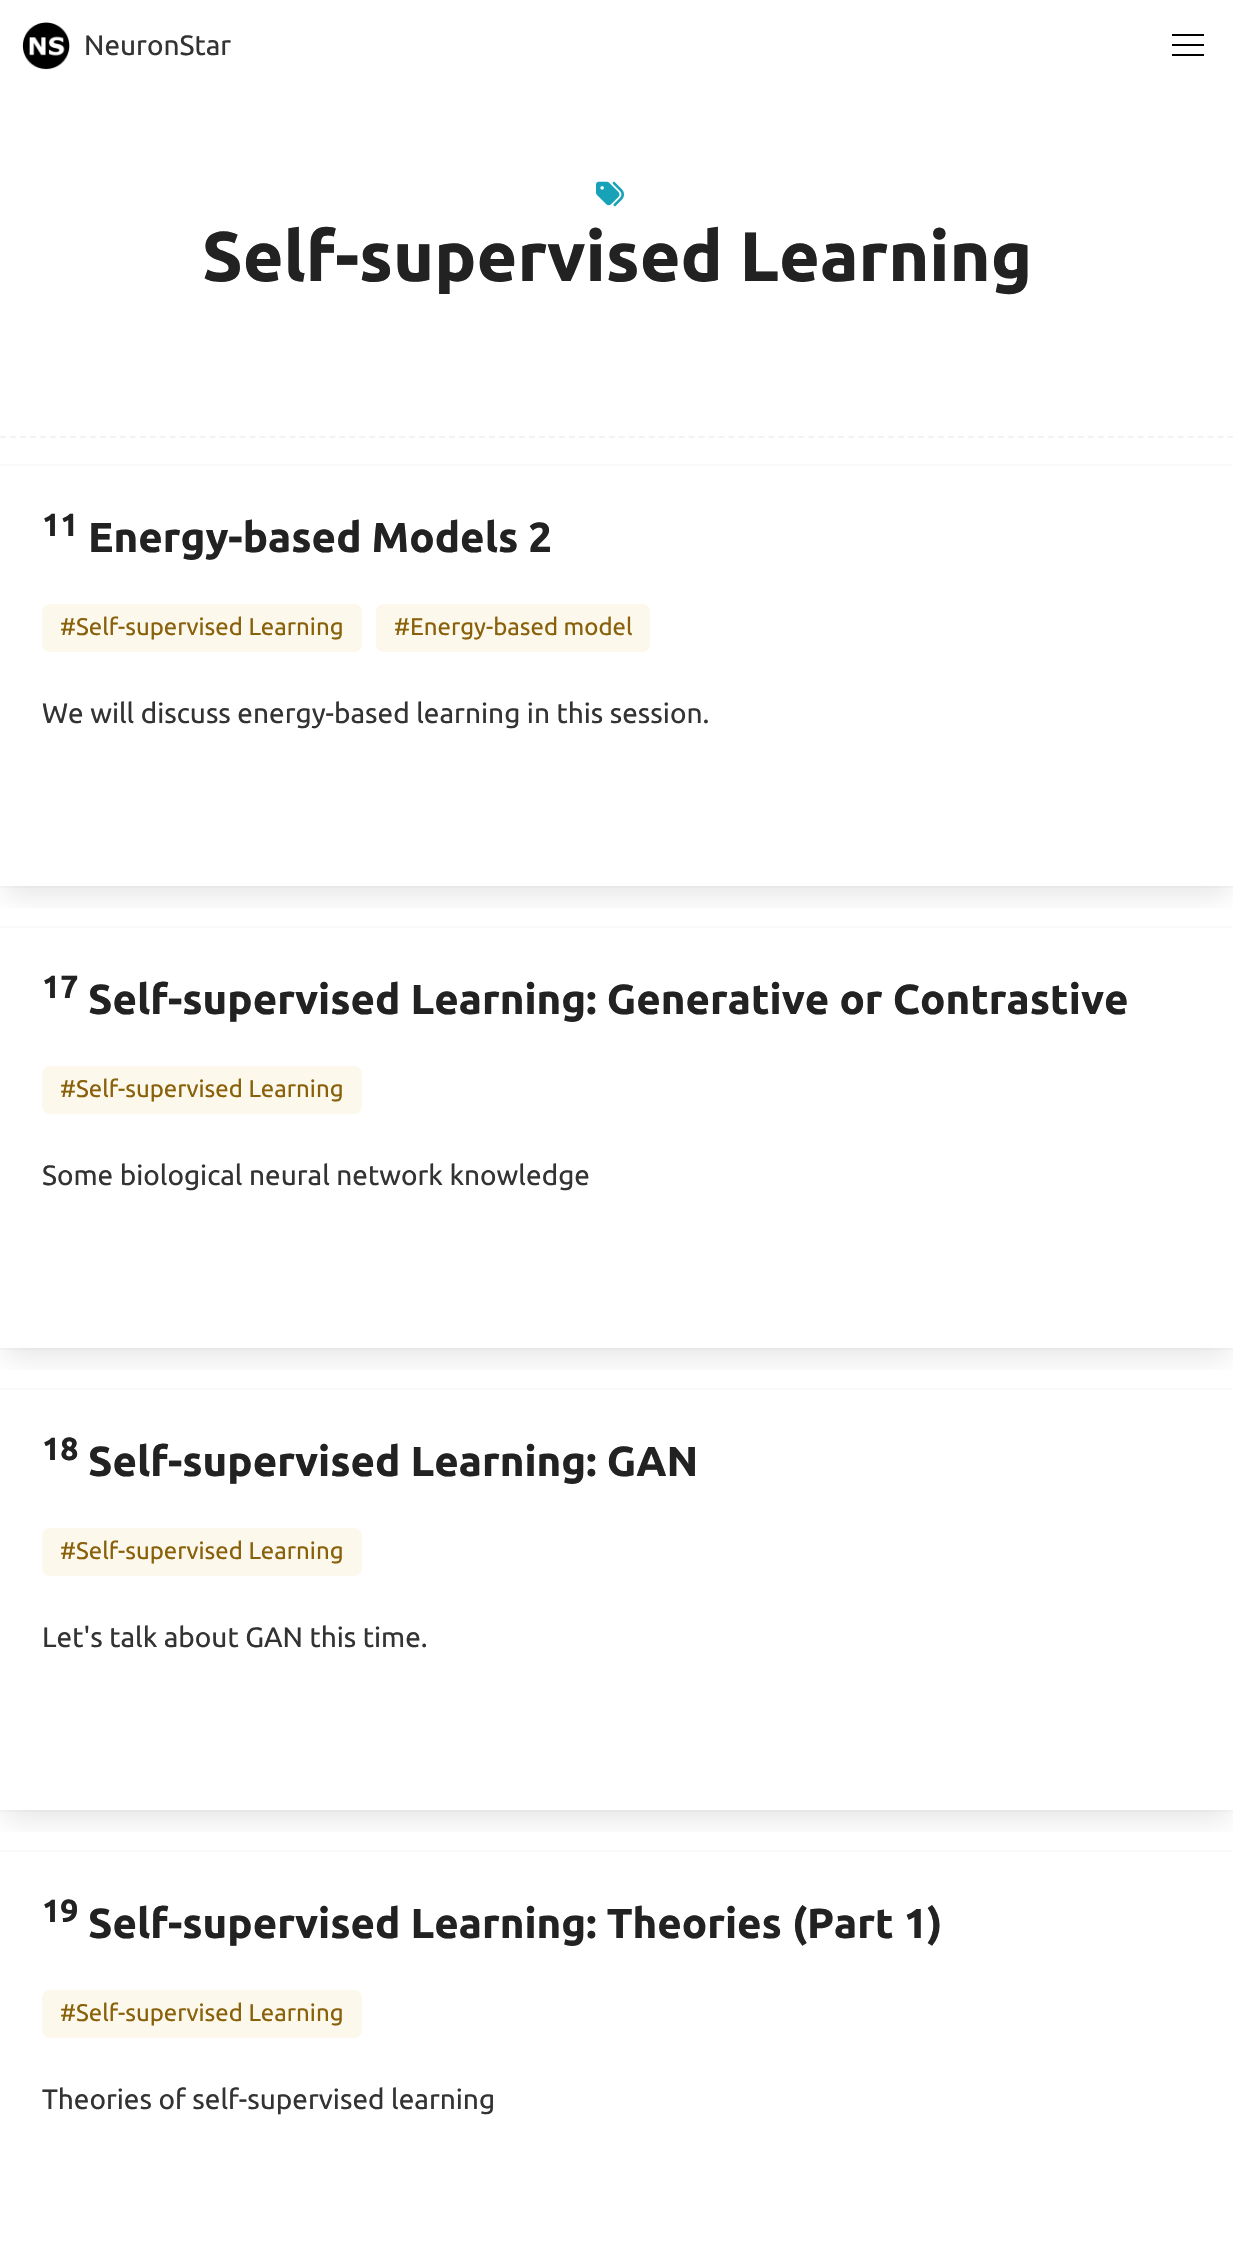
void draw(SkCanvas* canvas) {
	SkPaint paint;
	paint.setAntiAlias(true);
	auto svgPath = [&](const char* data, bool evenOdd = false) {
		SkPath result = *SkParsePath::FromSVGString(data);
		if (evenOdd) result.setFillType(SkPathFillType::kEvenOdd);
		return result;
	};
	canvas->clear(0xffffffff);
	canvas->drawImageRect(SkImages::DeferredFromEncodedData(SkData::MakeFromFileName("img1.png")), SkRect::MakeXYWH(22, 22, 48, 48), SkSamplingOptions());
	SkFont f1(fontMgr->matchFamilyStyle("Ubuntu", SkFontStyle::Normal()), 28);
	f1.setSubpixel(true);
	paint.setColor(0xff333333);
	canvas->drawString("NeuronStar", 84, 55, f1, paint);
	paint.setColor(0xff000000);
	canvas->drawRect(SkRect::MakeXYWH(1172, 34, 32, 2), paint);
	canvas->drawRect(SkRect::MakeXYWH(1172, 44, 32, 2), paint);
	canvas->drawRect(SkRect::MakeXYWH(1172, 54, 32, 2), paint);
	canvas->drawImageRect(SkImages::DeferredFromEncodedData(SkData::MakeFromFileName("img2.png")), SkRect::MakeXYWH(596, 181, 28, 26), SkSamplingOptions());
	SkFont f2(fontMgr->matchFamilyStyle("Ubuntu", SkFontStyle::Bold()), 70);
	f2.setSubpixel(true);
	paint.setColor(0xff222222);
	canvas->drawString("Self-supervised Learning", 202, 281, f2, paint);
	paint.setStroke(true);
	paint.setStrokeWidth(2);
	paint.setColor(0xfff3f3f3);
	paint.setPathEffect(SkDashPathEffect::Make({{6, 3.98f}}, 0));
	canvas->drawPath(svgPath("M0 437H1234"), paint);
	paint.setPathEffect(nullptr);
	paint.setColor(0xfffafafa);
	canvas->drawRect(SkRect::MakeXYWH(-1, 465, 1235, 422), paint);
	canvas->save();
	canvas->clipRect(SkRect::MakeXYWH(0, 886, 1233, 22));
	paint.setStroke(false);
	paint.setColor(0x1a0a0a0a);
	paint.setMaskFilter(SkMaskFilter::MakeBlur(kNormal_SkBlurStyle, 14));
	canvas->drawRect(SkRect::MakeXYWH(4, 484, 1226, 412), paint);
	paint.setMaskFilter(nullptr);
	canvas->restore();
	SkFont f3(fontMgr->matchFamilyStyle("Ubuntu", SkFontStyle::Bold()), 32);
	f3.setSubpixel(true);
	paint.setColor(0xff222222);
	canvas->drawString("11", 42, 536, f3, paint);
	SkFont f4(fontMgr->matchFamilyStyle("Ubuntu", SkFontStyle::Bold()), 42);
	f4.setSubpixel(true);
	canvas->drawString("Energy-based Models 2", 88, 552, f4, paint);
	paint.setColor(0xfffdf8ec);
	canvas->drawRoundRect(SkRect::MakeXYWH(42, 604, 320, 48), 8, 8, paint);
	SkFont f5(fontMgr->matchFamilyStyle("Ubuntu", SkFontStyle::Normal()), 24);
	f5.setSubpixel(true);
	paint.setColor(0xff89610b);
	canvas->drawString("#Self-supervised Learning", 60, 635, f5, paint);
	paint.setColor(0xfffdf8ec);
	canvas->drawRoundRect(SkRect::MakeXYWH(376, 604, 274, 48), 8, 8, paint);
	paint.setColor(0xff89610b);
	canvas->drawString("#Energy-based model", 394, 635, f5, paint);
	paint.setColor(0xff333333);
	canvas->drawString("We will discuss energy-based learning in this session.", 42, 723, f1, paint);
	paint.setStroke(true);
	paint.setColor(0xfffafafa);
	canvas->drawRect(SkRect::MakeXYWH(-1, 927, 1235, 422), paint);
	canvas->save();
	canvas->clipRect(SkRect::MakeXYWH(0, 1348, 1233, 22));
	paint.setStroke(false);
	paint.setColor(0x1a0a0a0a);
	paint.setMaskFilter(SkMaskFilter::MakeBlur(kNormal_SkBlurStyle, 14));
	canvas->drawRect(SkRect::MakeXYWH(4, 946, 1226, 412), paint);
	paint.setMaskFilter(nullptr);
	canvas->restore();
	paint.setColor(0xff222222);
	canvas->drawString("17", 42, 998, f3, paint);
	canvas->drawString("Self-supervised Learning: Generative or Contrastive", 88, 1014, f4, paint);
	paint.setColor(0xfffdf8ec);
	canvas->drawRoundRect(SkRect::MakeXYWH(42, 1066, 320, 48), 8, 8, paint);
	paint.setColor(0xff89610b);
	canvas->drawString("#Self-supervised Learning", 60, 1097, f5, paint);
	paint.setColor(0xff333333);
	canvas->drawString("Some biological neural network knowledge", 42, 1185, f1, paint);
	paint.setStroke(true);
	paint.setColor(0xfffafafa);
	canvas->drawRect(SkRect::MakeXYWH(-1, 1389, 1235, 422), paint);
	canvas->save();
	canvas->clipRect(SkRect::MakeXYWH(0, 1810, 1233, 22));
	paint.setStroke(false);
	paint.setColor(0x1a0a0a0a);
	paint.setMaskFilter(SkMaskFilter::MakeBlur(kNormal_SkBlurStyle, 14));
	canvas->drawRect(SkRect::MakeXYWH(4, 1408, 1226, 412), paint);
	paint.setMaskFilter(nullptr);
	canvas->restore();
	paint.setColor(0xff222222);
	canvas->drawString("18", 42, 1460, f3, paint);
	canvas->drawString("Self-supervised Learning: GAN", 88, 1476, f4, paint);
	paint.setColor(0xfffdf8ec);
	canvas->drawRoundRect(SkRect::MakeXYWH(42, 1528, 320, 48), 8, 8, paint);
	paint.setColor(0xff89610b);
	canvas->drawString("#Self-supervised Learning", 60, 1559, f5, paint);
	paint.setColor(0xff333333);
	canvas->drawString("Let's talk about GAN this time.", 42, 1647, f1, paint);
	paint.setStroke(true);
	paint.setColor(0xfffafafa);
	canvas->drawRect(SkRect::MakeXYWH(-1, 1851, 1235, 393), paint);
	paint.setStroke(false);
	paint.setColor(0xff222222);
	canvas->drawString("19", 42, 1922, f3, paint);
	canvas->drawString("Self-supervised Learning: Theories (Part 1)", 88, 1938, f4, paint);
	paint.setColor(0xfffdf8ec);
	canvas->drawRoundRect(SkRect::MakeXYWH(42, 1990, 320, 48), 8, 8, paint);
	paint.setColor(0xff89610b);
	canvas->drawString("#Self-supervised Learning", 60, 2021, f5, paint);
	paint.setColor(0xff333333);
	canvas->drawString("Theories of self-supervised learning", 42, 2109, f1, paint);
}
